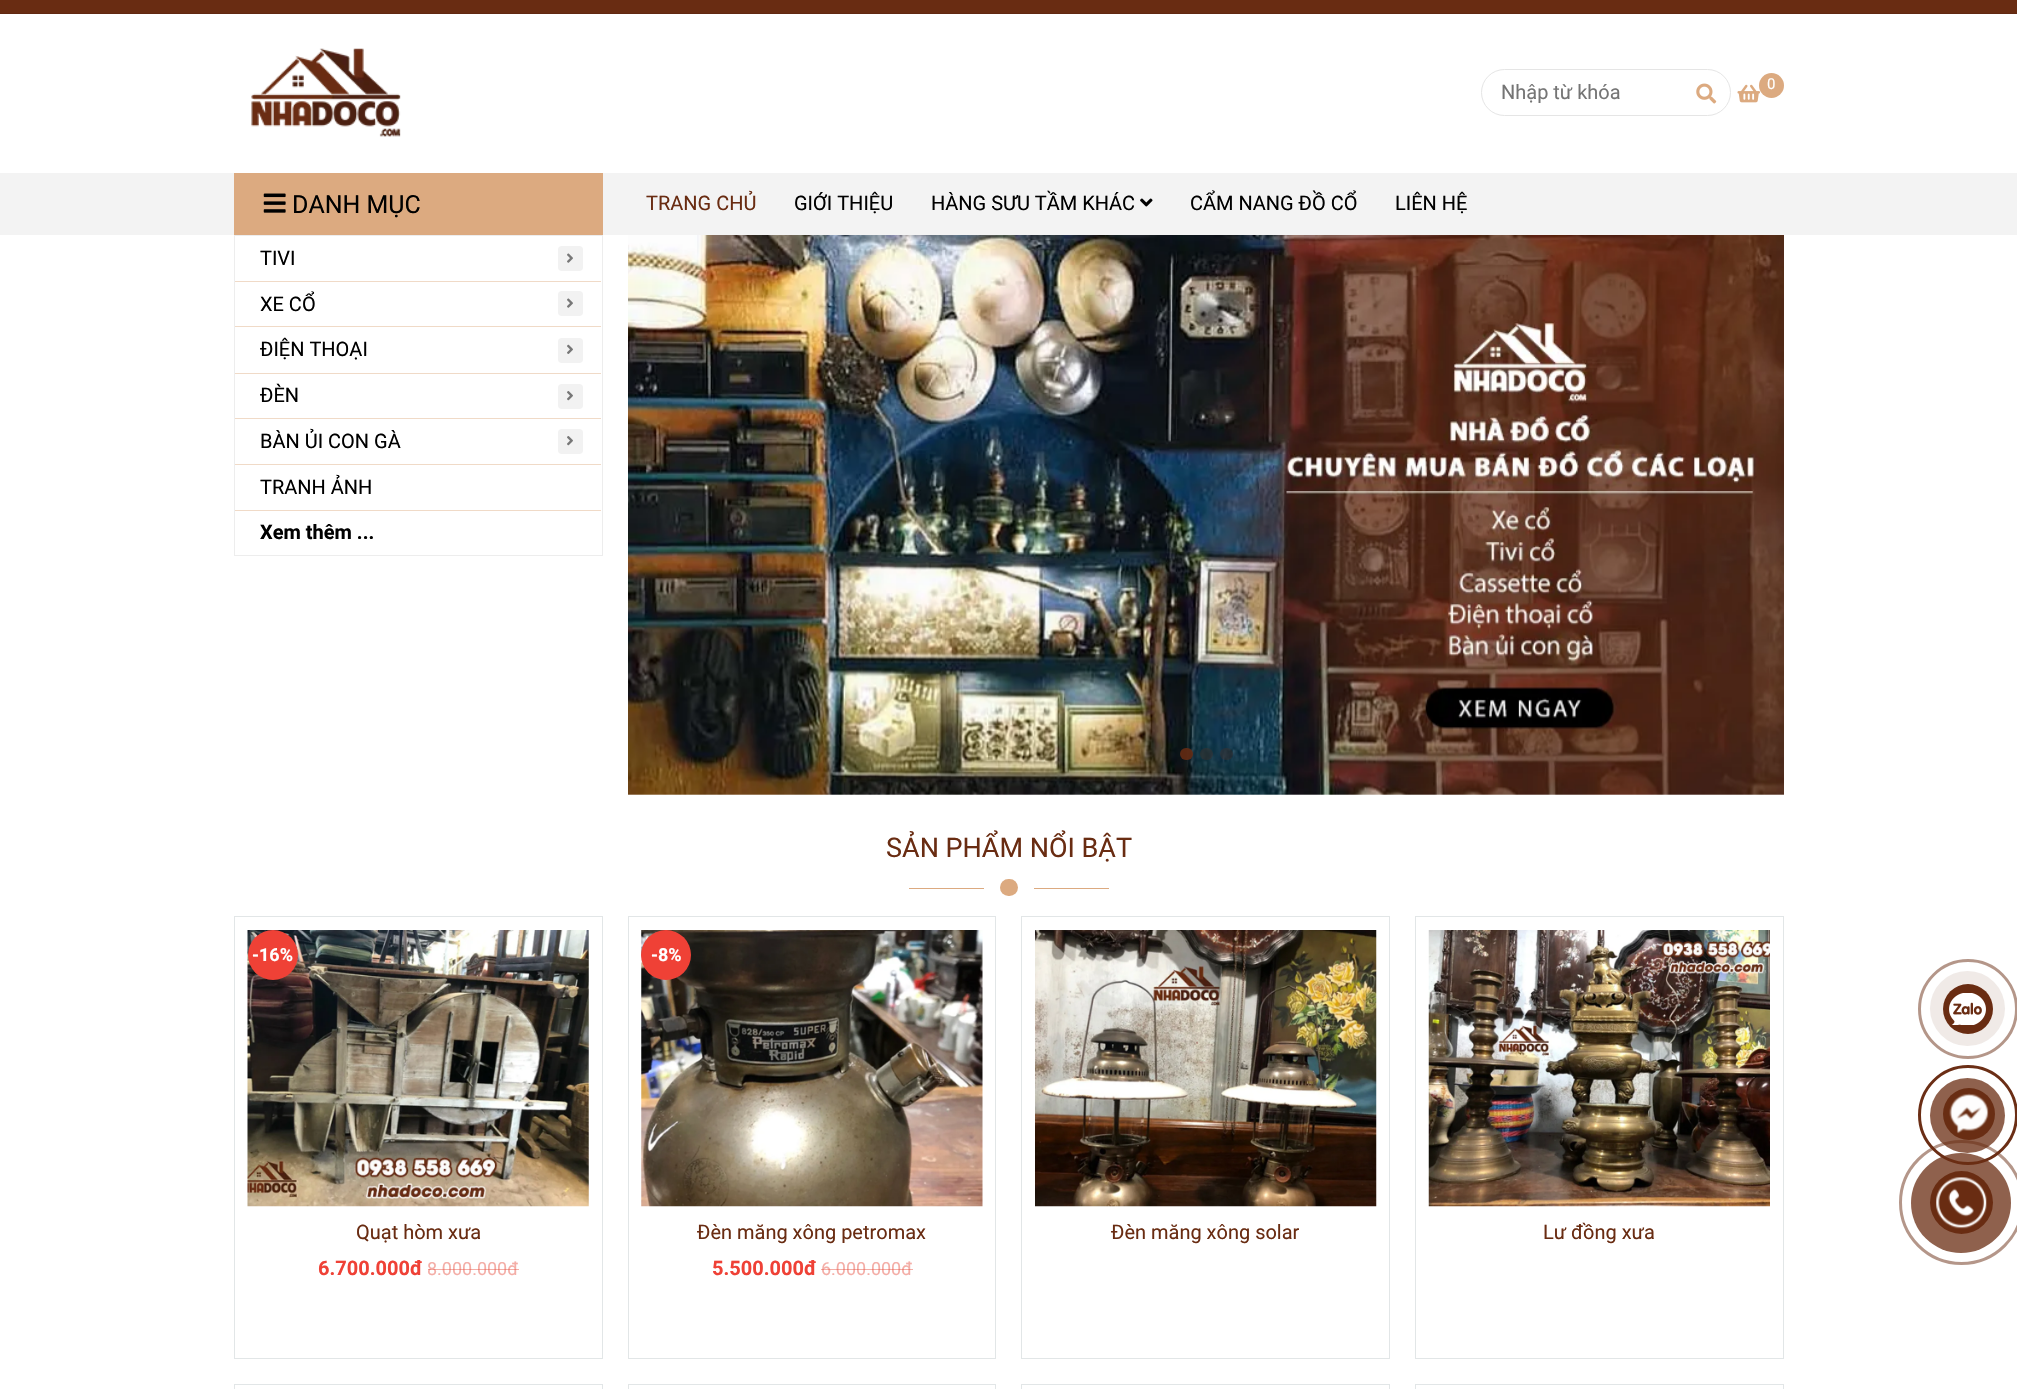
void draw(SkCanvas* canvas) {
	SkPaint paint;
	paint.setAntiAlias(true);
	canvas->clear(0xffffffff);
	paint.setColor(0xff692c12);
	canvas->drawRect(SkRect::MakeXYWH(0, 0, 2017, 13), paint);
	paint.setColor(0xff612811);
	canvas->drawRect(SkRect::MakeXYWH(0, 13, 2017, 1), paint);
	canvas->drawImageRect(SkImages::DeferredFromEncodedData(SkData::MakeFromFileName("img1.png")), SkRect::MakeXYWH(251, 48, 150, 89), SkSamplingOptions());
	paint.setStroke(true);
	paint.setStrokeWidth(1);
	paint.setColor(0xffe5e5e5);
	canvas->drawRoundRect(SkRect::MakeXYWH(1481.5, 69.5, 249, 46), 23, 23, paint);
	SkFont f1(fontMgr->matchFamilyStyle("Roboto", SkFontStyle::Normal()), 20);
	f1.setSubpixel(true);
	paint.setStroke(false);
	paint.setColor(0xff757575);
	canvas->drawString("Nhập từ khóa", 1501, 99, f1, paint);
	canvas->drawImageRect(SkImages::DeferredFromEncodedData(SkData::MakeFromFileName("img2.png")), SkRect::MakeXYWH(1696, 83, 21, 21), SkSamplingOptions());
	canvas->drawImageRect(SkImages::DeferredFromEncodedData(SkData::MakeFromFileName("img3.png")), SkRect::MakeXYWH(1737, 84, 23, 19), SkSamplingOptions());
	paint.setColor(0xffdcaa80);
	canvas->drawCircle(1771.5, 85.5, 12.5, paint);
	SkFont f2(fontMgr->matchFamilyStyle("Roboto", SkFontStyle::Normal()), 15);
	f2.setSubpixel(true);
	paint.setColor(0xffffffff);
	canvas->drawString("0", 1767, 89, f2, paint);
	paint.setColor(0xfff3f3f3);
	canvas->drawRect(SkRect::MakeXYWH(0, 173, 2017, 62), paint);
	paint.setColor(0xffdcaa80);
	canvas->drawRect(SkRect::MakeXYWH(234, 173, 369, 62), paint);
	canvas->drawImageRect(SkImages::DeferredFromEncodedData(SkData::MakeFromFileName("img4.png")), SkRect::MakeXYWH(263, 193, 23, 20), SkSamplingOptions());
	SkFont f3(fontMgr->matchFamilyStyle("Roboto", SkFontStyle::Normal()), 25);
	f3.setSubpixel(true);
	paint.setColor(0xff000000);
	canvas->drawString("DANH MỤC", 292, 213, f3, paint);
	paint.setStroke(true);
	paint.setColor(0xffededed);
	canvas->drawRect(SkRect::MakeXYWH(234.5, 235.5, 368, 320), paint);
	paint.setStroke(false);
	paint.setColor(0xfff0dac7);
	canvas->drawRect(SkRect::MakeXYWH(235, 281, 366, 1), paint);
	paint.setColor(0xff000000);
	canvas->drawString("TIVI", 260, 265, f1, paint);
	paint.setColor(0xfff2f2f2);
	canvas->drawRoundRect(SkRect::MakeXYWH(558, 246, 25, 25), 4, 4, paint);
	canvas->drawImageRect(SkImages::DeferredFromEncodedData(SkData::MakeFromFileName("img5.png")), SkRect::MakeXYWH(567, 253, 6, 10), SkSamplingOptions());
	paint.setColor(0xfff0dac7);
	canvas->drawRect(SkRect::MakeXYWH(235, 326, 366, 1), paint);
	paint.setColor(0xff000000);
	canvas->drawString("XE CỔ", 260, 311, f1, paint);
	paint.setColor(0xfff2f2f2);
	canvas->drawRoundRect(SkRect::MakeXYWH(558, 291, 25, 25), 4, 4, paint);
	canvas->drawImageRect(SkImages::DeferredFromEncodedData(SkData::MakeFromFileName("img5.png")), SkRect::MakeXYWH(567, 298, 6, 10), SkSamplingOptions());
	paint.setColor(0xfff0dac7);
	canvas->drawRect(SkRect::MakeXYWH(235, 373, 366, 1), paint);
	paint.setColor(0xff000000);
	canvas->drawString("ĐIỆN THOẠI", 260, 356, f1, paint);
	paint.setColor(0xfff2f2f2);
	canvas->drawRoundRect(SkRect::MakeXYWH(558, 338, 25, 25), 4, 4, paint);
	canvas->drawImageRect(SkImages::DeferredFromEncodedData(SkData::MakeFromFileName("img6.png")), SkRect::MakeXYWH(567, 344, 6, 10), SkSamplingOptions());
	paint.setColor(0xfff0dac7);
	canvas->drawRect(SkRect::MakeXYWH(235, 418, 366, 1), paint);
	paint.setColor(0xff000000);
	canvas->drawString("ĐÈN", 260, 402, f1, paint);
	paint.setColor(0xfff2f2f2);
	canvas->drawRoundRect(SkRect::MakeXYWH(558, 384, 25, 25), 4, 4, paint);
	canvas->drawImageRect(SkImages::DeferredFromEncodedData(SkData::MakeFromFileName("img7.png")), SkRect::MakeXYWH(567, 391, 6, 10), SkSamplingOptions());
	paint.setColor(0xfff0dac7);
	canvas->drawRect(SkRect::MakeXYWH(235, 464, 366, 1), paint);
	paint.setColor(0xff000000);
	canvas->drawString("BÀN ỦI CON GÀ", 260, 448, f1, paint);
	paint.setColor(0xfff2f2f2);
	canvas->drawRoundRect(SkRect::MakeXYWH(558, 429, 25, 25), 4, 4, paint);
	canvas->drawImageRect(SkImages::DeferredFromEncodedData(SkData::MakeFromFileName("img7.png")), SkRect::MakeXYWH(567, 436, 6, 10), SkSamplingOptions());
	paint.setColor(0xfff0dac7);
	canvas->drawRect(SkRect::MakeXYWH(235, 510, 366, 1), paint);
	paint.setColor(0xff000000);
	canvas->drawString("TRANH ẢNH", 260, 494, f1, paint);
	SkFont f4(fontMgr->matchFamilyStyle("Roboto", SkFontStyle::Bold()), 20);
	f4.setSubpixel(true);
	canvas->drawString("Xem thêm ...", 260, 539, f4, paint);
	paint.setColor(0xff692c12);
	canvas->drawString("TRANG CHỦ", 646, 210, f1, paint);
	paint.setColor(0xff000000);
	canvas->drawString("GIỚI THIỆU", 794, 210, f1, paint);
	canvas->drawString("HÀNG SƯU TẦM KHÁC", 931, 210, f1, paint);
	canvas->drawImageRect(SkImages::DeferredFromEncodedData(SkData::MakeFromFileName("img8.png")), SkRect::MakeXYWH(1140, 198, 13, 9), SkSamplingOptions());
	canvas->drawString("CẨM NANG ĐỒ CỔ", 1190, 210, f1, paint);
	canvas->drawString("LIÊN HỆ", 1395, 210, f1, paint);
	canvas->drawImageRect(SkImages::DeferredFromEncodedData(SkData::MakeFromFileName("img9.png")), SkRect::MakeXYWH(628, 235, 1156, 560), SkSamplingOptions());
	paint.setColor(0xd9692c12);
	canvas->drawRoundRect(SkRect::MakeXYWH(1180, 748, 13, 12), 6, 6, paint);
	paint.setColor(0x40692c12);
	canvas->drawRoundRect(SkRect::MakeXYWH(1200, 748, 13, 12), 6, 6, paint);
	canvas->drawRoundRect(SkRect::MakeXYWH(1220, 748, 13, 12), 6, 6, paint);
	SkFont f5(fontMgr->matchFamilyStyle("Roboto", SkFontStyle::Normal()), 27);
	f5.setSubpixel(true);
	paint.setColor(0xff692c12);
	canvas->drawString("SẢN PHẨM NỔI BẬT", 886, 857, f5, paint);
	paint.setColor(0xffdcaa80);
	canvas->drawRect(SkRect::MakeXYWH(909, 888, 75, 1), paint);
	canvas->drawRoundRect(SkRect::MakeXYWH(1000, 879, 18, 17), 8.5, 8.5, paint);
	canvas->drawRect(SkRect::MakeXYWH(1034, 888, 75, 1), paint);
	paint.setStroke(true);
	paint.setColor(0xffe2e6e7);
	canvas->drawRect(SkRect::MakeXYWH(234.5, 916.5, 368, 442), paint);
	canvas->drawImageRect(SkImages::DeferredFromEncodedData(SkData::MakeFromFileName("img10.png")), SkRect::MakeXYWH(247, 930, 342, 277), SkSamplingOptions());
	paint.setStroke(false);
	paint.setColor(0xffef4136);
	canvas->drawCircle(273, 955, 25, paint);
	SkFont f6(fontMgr->matchFamilyStyle("Roboto", SkFontStyle::Bold()), 18);
	f6.setSubpixel(true);
	paint.setColor(0xffffffff);
	canvas->drawString("-16%", 252, 961, f6, paint);
	paint.setColor(0xffef4136);
	canvas->drawString("6.700.000đ", 318, 1275, f4, paint);
	SkFont f7(fontMgr->matchFamilyStyle("Roboto", SkFontStyle::Normal()), 18);
	f7.setSubpixel(true);
	paint.setColor(0xfff4aea7);
	canvas->drawString("8.000.000đ", 427, 1275, f7, paint);
	paint.setColor(0x73e74c3c);
	canvas->drawRect(SkRect::MakeXYWH(428, 1269, 91, 1), paint);
	paint.setColor(0xff692c12);
	canvas->drawString("Quạt hòm xưa", 356, 1239, f1, paint);
	paint.setStroke(true);
	paint.setColor(0xffe2e6e7);
	canvas->drawRect(SkRect::MakeXYWH(628.5, 916.5, 367, 442), paint);
	canvas->drawImageRect(SkImages::DeferredFromEncodedData(SkData::MakeFromFileName("img11.png")), SkRect::MakeXYWH(641, 930, 342, 277), SkSamplingOptions());
	paint.setStroke(false);
	paint.setColor(0xffef4136);
	canvas->drawCircle(666, 955, 25, paint);
	paint.setColor(0xffffffff);
	canvas->drawString("-8%", 651, 961, f6, paint);
	paint.setColor(0xffef4136);
	canvas->drawString("5.500.000đ", 712, 1275, f4, paint);
	paint.setColor(0xfff4aea7);
	canvas->drawString("6.000.000đ", 821, 1275, f7, paint);
	paint.setColor(0x73e74c3c);
	canvas->drawRect(SkRect::MakeXYWH(821, 1269, 92, 1), paint);
	paint.setColor(0xff692c12);
	canvas->drawString("Đèn măng xông petromax", 697, 1239, f1, paint);
	paint.setStroke(true);
	paint.setColor(0xffe2e6e7);
	canvas->drawRect(SkRect::MakeXYWH(1021.5, 916.5, 368, 442), paint);
	canvas->drawImageRect(SkImages::DeferredFromEncodedData(SkData::MakeFromFileName("img12.png")), SkRect::MakeXYWH(1035, 930, 342, 277), SkSamplingOptions());
	paint.setStroke(false);
	paint.setColor(0xff692c12);
	canvas->drawString("Đèn măng xông solar", 1111, 1239, f1, paint);
	paint.setStroke(true);
	paint.setColor(0xffe2e6e7);
	canvas->drawRect(SkRect::MakeXYWH(1415.5, 916.5, 368, 442), paint);
	canvas->drawImageRect(SkImages::DeferredFromEncodedData(SkData::MakeFromFileName("img13.png")), SkRect::MakeXYWH(1428, 930, 342, 277), SkSamplingOptions());
	paint.setStroke(false);
	paint.setColor(0xff692c12);
	canvas->drawString("Lư đồng xưa", 1543, 1239, f1, paint);
	paint.setStroke(true);
	paint.setColor(0xffe2e6e7);
	canvas->drawRect(SkRect::MakeXYWH(234.5, 1384.5, 368, 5), paint);
	canvas->drawRect(SkRect::MakeXYWH(628.5, 1384.5, 367, 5), paint);
	canvas->drawRect(SkRect::MakeXYWH(1021.5, 1384.5, 368, 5), paint);
	canvas->drawRect(SkRect::MakeXYWH(1415.5, 1384.5, 368, 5), paint);
	paint.setStrokeWidth(3);
	paint.setColor(0xffb49689);
	canvas->drawCircle(1968, 1009, 48.5, paint);
	paint.setStroke(false);
	paint.setColor(0xfff0eae7);
	canvas->drawCircle(1967.5, 1008.5, 37.5, paint);
	paint.setColor(0xff692c12);
	canvas->drawCircle(1968, 1009, 25, paint);
	canvas->drawImageRect(SkImages::DeferredFromEncodedData(SkData::MakeFromFileName("img14.png")), SkRect::MakeXYWH(1949, 993, 37, 32), SkSamplingOptions());
	paint.setStroke(true);
	paint.setColor(0xffb49689);
	canvas->drawCircle(1961.5, 1202.5, 61, paint);
	paint.setStroke(false);
	paint.setColor(0xff8f614d);
	canvas->drawCircle(1961, 1203, 50, paint);
	paint.setStroke(true);
	paint.setColor(0xfc692c12);
	canvas->drawCircle(1968, 1115, 48.5, paint);
	paint.setStroke(false);
	paint.setColor(0xbf692c12);
	canvas->drawCircle(1967.5, 1115.5, 37.5, paint);
	paint.setColor(0xff692d13);
	canvas->drawCircle(1969, 1114, 26, paint);
	canvas->drawImageRect(SkImages::DeferredFromEncodedData(SkData::MakeFromFileName("img15.png")), SkRect::MakeXYWH(1949, 1093, 40, 41), SkSamplingOptions());
	paint.setColor(0xff692c12);
	canvas->drawCircle(1961.5, 1202.5, 31.5, paint);
	canvas->drawImageRect(SkImages::DeferredFromEncodedData(SkData::MakeFromFileName("img16.png")), SkRect::MakeXYWH(1936, 1177, 51, 52), SkSamplingOptions());
}
